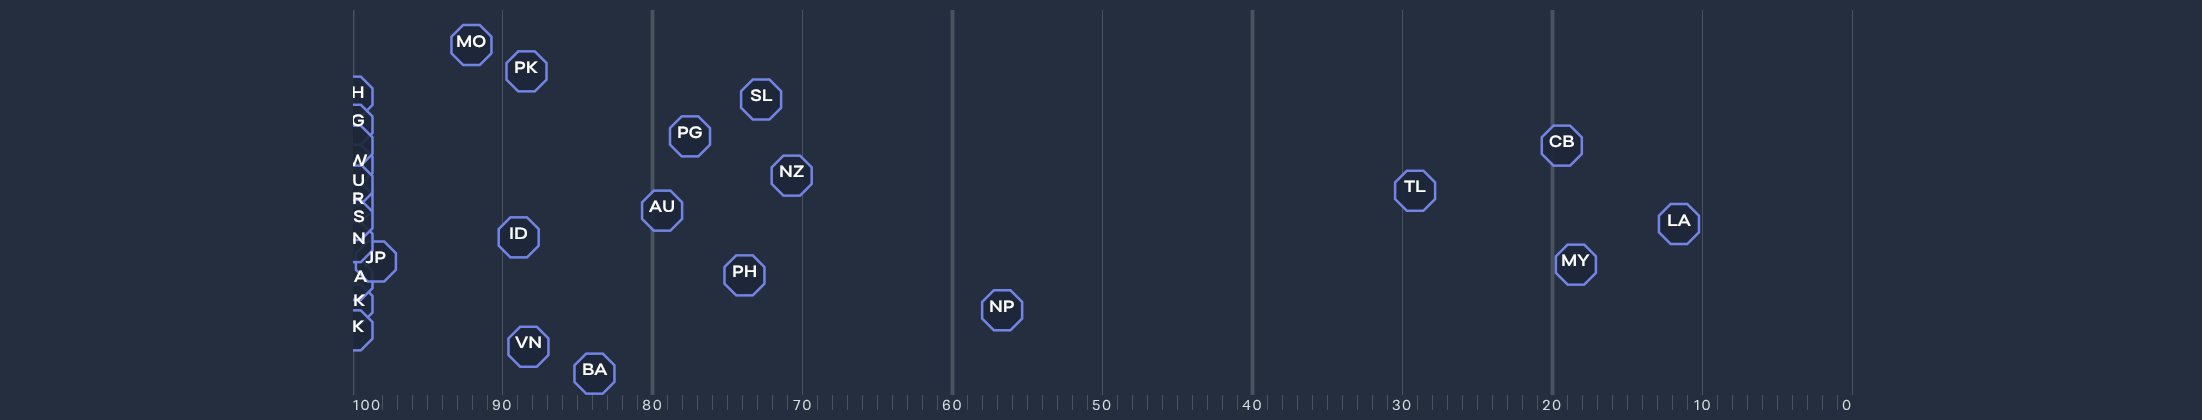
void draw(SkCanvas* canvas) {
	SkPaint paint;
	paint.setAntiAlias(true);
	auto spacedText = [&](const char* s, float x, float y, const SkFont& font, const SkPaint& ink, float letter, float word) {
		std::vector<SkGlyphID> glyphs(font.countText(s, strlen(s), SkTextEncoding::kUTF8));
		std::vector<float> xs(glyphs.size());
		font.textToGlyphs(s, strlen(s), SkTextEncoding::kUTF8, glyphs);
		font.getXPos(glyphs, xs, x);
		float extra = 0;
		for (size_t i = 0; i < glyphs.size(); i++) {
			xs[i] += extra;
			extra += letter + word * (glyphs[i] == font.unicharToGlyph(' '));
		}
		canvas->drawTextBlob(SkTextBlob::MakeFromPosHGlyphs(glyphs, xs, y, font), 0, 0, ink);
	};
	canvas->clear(0xff252e3f);
	SkFont f1(fontMgr->matchFamilyStyle("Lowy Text", SkFontStyle::Normal()), 14);
	f1.setSubpixel(true);
	paint.setColor(0xffd4dde1);
	spacedText("0", 1842, 410, f1, paint, 1.5, 0);
	canvas->drawImageRect(SkImages::DeferredFromEncodedData(SkData::MakeFromFileName("img1.png")), SkRect::MakeXYWH(353, 10, 1500, 400), SkSamplingOptions());
	SkFont f2(fontMgr->matchFamilyStyle("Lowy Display", SkFontStyle(600, SkFontStyle::kNormal_Width, SkFontStyle::kUpright_Slant)), 16);
	f2.setSubpixel(true);
	paint.setColor(0xffffffff);
	canvas->drawString("MO", 456, 47, f2, paint);
	canvas->drawString("PK", 514, 73, f2, paint);
	canvas->save();
	canvas->clipRect(SkRect::MakeXYWH(353, 10, 1500, 400));
	canvas->drawString("H", 351, 98, f2, paint);
	canvas->restore();
	canvas->drawString("SL", 750, 101, f2, paint);
	canvas->save();
	canvas->clipRect(SkRect::MakeXYWH(353, 10, 1500, 400));
	canvas->drawString("G", 351, 126, f2, paint);
	canvas->restore();
	canvas->drawString("PG", 677, 138, f2, paint);
	canvas->drawString("CB", 1549, 147, f2, paint);
	canvas->save();
	canvas->clipRect(SkRect::MakeXYWH(353, 10, 1500, 400));
	canvas->drawString("W", 348, 166, f2, paint);
	canvas->restore();
	canvas->drawString("NZ", 779, 177, f2, paint);
	canvas->drawString("U", 352, 186, f2, paint);
	canvas->drawString("TL", 1404, 192, f2, paint);
	canvas->drawString("R", 352, 204, f2, paint);
	canvas->drawString("AU", 649, 212, f2, paint);
	canvas->drawString("S", 353, 222, f2, paint);
	canvas->drawString("LA", 1667, 226, f2, paint);
	canvas->drawString("N", 352, 244, f2, paint);
	canvas->drawString("ID", 509, 239, f2, paint);
	canvas->drawString("JP", 365, 263, f2, paint);
	canvas->drawString("MY", 1561, 266, f2, paint);
	canvas->drawString("A", 354, 282, f2, paint);
	canvas->drawString("PH", 732, 277, f2, paint);
	canvas->drawString("K", 353, 306, f2, paint);
	canvas->drawString("NP", 989, 312, f2, paint);
	canvas->drawString("K", 352, 332, f2, paint);
	canvas->drawString("VN", 515, 348, f2, paint);
	canvas->drawString("BA", 582, 375, f2, paint);
	paint.setColor(0xffd4dde1);
	spacedText("100", 353, 410, f1, paint, 1.5, 0);
	spacedText("90", 492, 410, f1, paint, 1.5, 0);
	spacedText("80", 642, 410, f1, paint, 1.5, 0);
	spacedText("70", 793, 410, f1, paint, 1.5, 0);
	spacedText("60", 942, 410, f1, paint, 1.5, 0);
	spacedText("50", 1092, 410, f1, paint, 1.5, 0);
	spacedText("40", 1242, 410, f1, paint, 1.5, 0);
	spacedText("30", 1392, 410, f1, paint, 1.5, 0);
	spacedText("20", 1542, 410, f1, paint, 1.5, 0);
	spacedText("10", 1694, 410, f1, paint, 1.5, 0);
}
